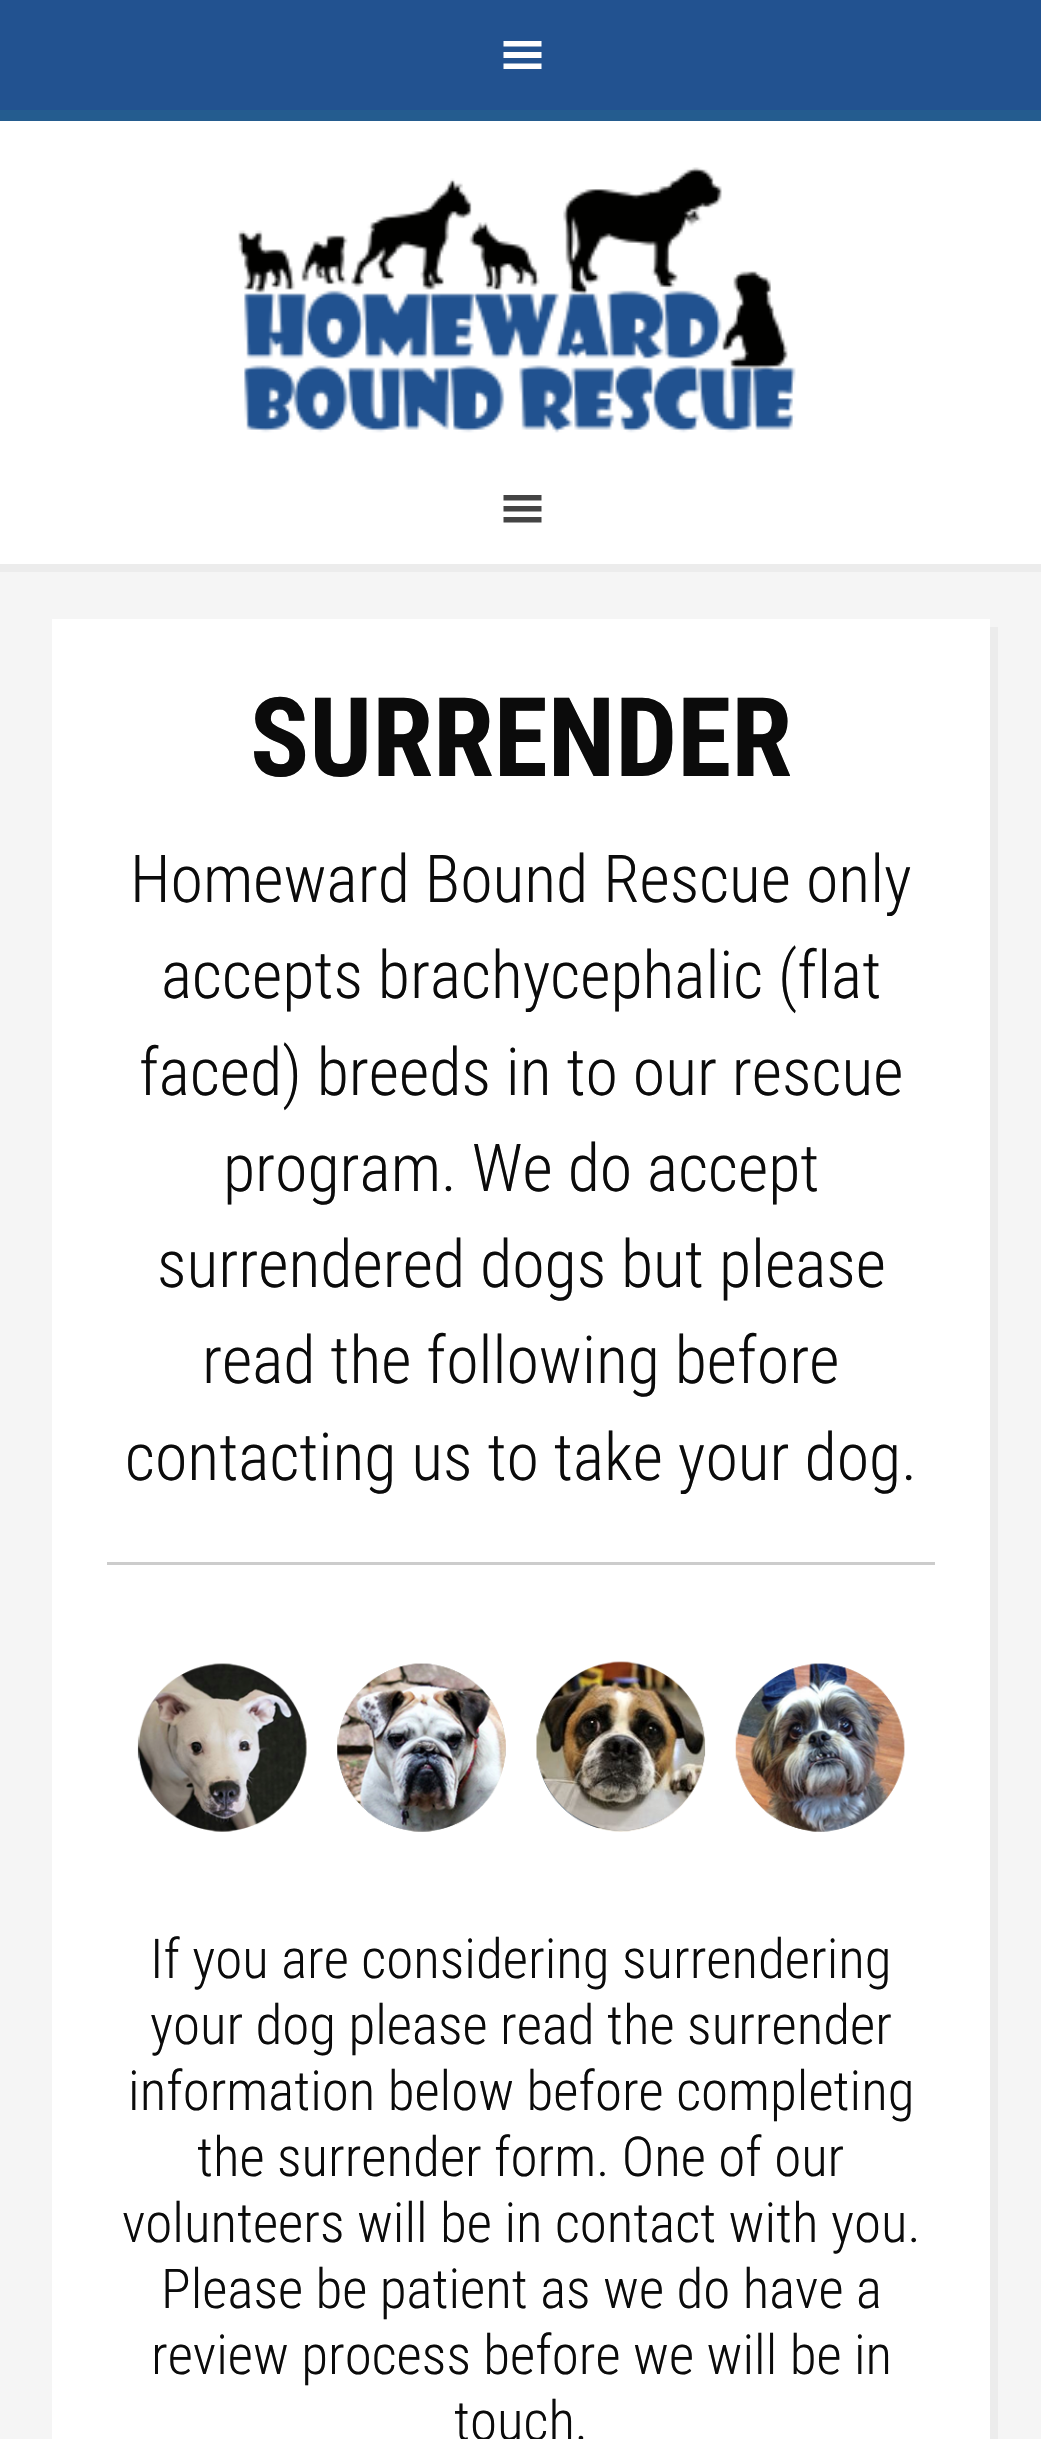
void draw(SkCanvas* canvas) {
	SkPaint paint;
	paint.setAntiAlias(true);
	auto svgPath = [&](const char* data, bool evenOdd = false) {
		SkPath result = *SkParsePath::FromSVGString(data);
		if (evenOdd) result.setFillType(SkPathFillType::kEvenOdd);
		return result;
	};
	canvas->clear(0xfff5f5f5);
	paint.setColor(0xff225290);
	canvas->drawRect(SkRect::MakeXYWH(0, 0, 1041, 110), paint);
	paint.setColor(0xffffffff);
	canvas->drawPath(svgPath("M503.5 69H541.5V63.5H503.5ZM503.5 41V46.5H541.5V41ZM503.5 58H541.5V52H503.5Z"), paint);
	paint.setColor(0xffececec);
	canvas->drawRect(SkRect::MakeXYWH(0, 564, 1041, 8), paint);
	paint.setColor(0xffffffff);
	canvas->drawRect(SkRect::MakeXYWH(0, 121, 1041, 443), paint);
	paint.setColor(0xff245c8f);
	canvas->drawRect(SkRect::MakeXYWH(0, 110, 1041, 11), paint);
	canvas->drawImageRect(SkImages::DeferredFromEncodedData(SkData::MakeFromFileName("img1.png")), SkRect::MakeXYWH(238, 167, 558, 266), SkSamplingOptions());
	paint.setColor(0xff444444);
	canvas->drawPath(svgPath("M503.5 522.5H541.5V517H503.5ZM503.5 495V500.5H541.5V495ZM503.5 511.5H541.5V506H503.5Z"), paint);
	paint.setColor(0xffececec);
	canvas->drawPath(svgPath("M61 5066V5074H998V627H990V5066Z"), paint);
	paint.setColor(0xffffffff);
	canvas->drawRect(SkRect::MakeXYWH(52, 619, 938, 1820), paint);
	SkFont f1(fontMgr->matchFamilyStyle("Roboto Condensed", SkFontStyle::Bold()), 110);
	f1.setSubpixel(true);
	paint.setColor(0xff0b0b0b);
	canvas->drawString("SURRENDER", 250, 776, f1, paint);
	SkFont f2(fontMgr->matchFamilyStyle("Roboto Condensed", SkFontStyle(300, SkFontStyle::kNormal_Width, SkFontStyle::kUpright_Slant)), 66);
	f2.setSubpixel(true);
	canvas->drawString("Homeward Bound Rescue only", 130, 902, f2, paint);
	canvas->drawString("accepts brachycephalic (flat", 161, 998, f2, paint);
	canvas->drawString("faced) breeds in to our rescue", 139, 1095, f2, paint);
	canvas->drawString("program. We do accept", 223, 1191, f2, paint);
	canvas->drawString("surrendered dogs but please", 157, 1287, f2, paint);
	canvas->drawString("read the following before", 202, 1383, f2, paint);
	canvas->drawString("contacting us to take your dog.", 125, 1480, f2, paint);
	paint.setColor(0xffcccccc);
	canvas->drawRect(SkRect::MakeXYWH(107, 1562, 828, 3), paint);
	canvas->drawImageRect(SkImages::DeferredFromEncodedData(SkData::MakeFromFileName("img2.png")), SkRect::MakeXYWH(137, 1661, 768, 171), SkSamplingOptions());
	SkFont f3(fontMgr->matchFamilyStyle("Roboto Condensed", SkFontStyle(300, SkFontStyle::kNormal_Width, SkFontStyle::kUpright_Slant)), 55);
	f3.setSubpixel(true);
	paint.setColor(0xff0b0b0b);
	canvas->drawString("If you are considering surrendering", 150, 1978, f3, paint);
	canvas->drawString("your dog please read the surrender", 150, 2044, f3, paint);
	canvas->drawString("information below before completing", 128, 2110, f3, paint);
	canvas->drawString("the surrender form. One of our", 197, 2176, f3, paint);
	canvas->drawString("volunteers will be in contact with you.", 122, 2242, f3, paint);
	canvas->drawString("Please be patient as we do have a", 161, 2308, f3, paint);
	canvas->drawString("review process before we will be in", 151, 2374, f3, paint);
	canvas->drawString("touch.", 454, 2440, f3, paint);
}
